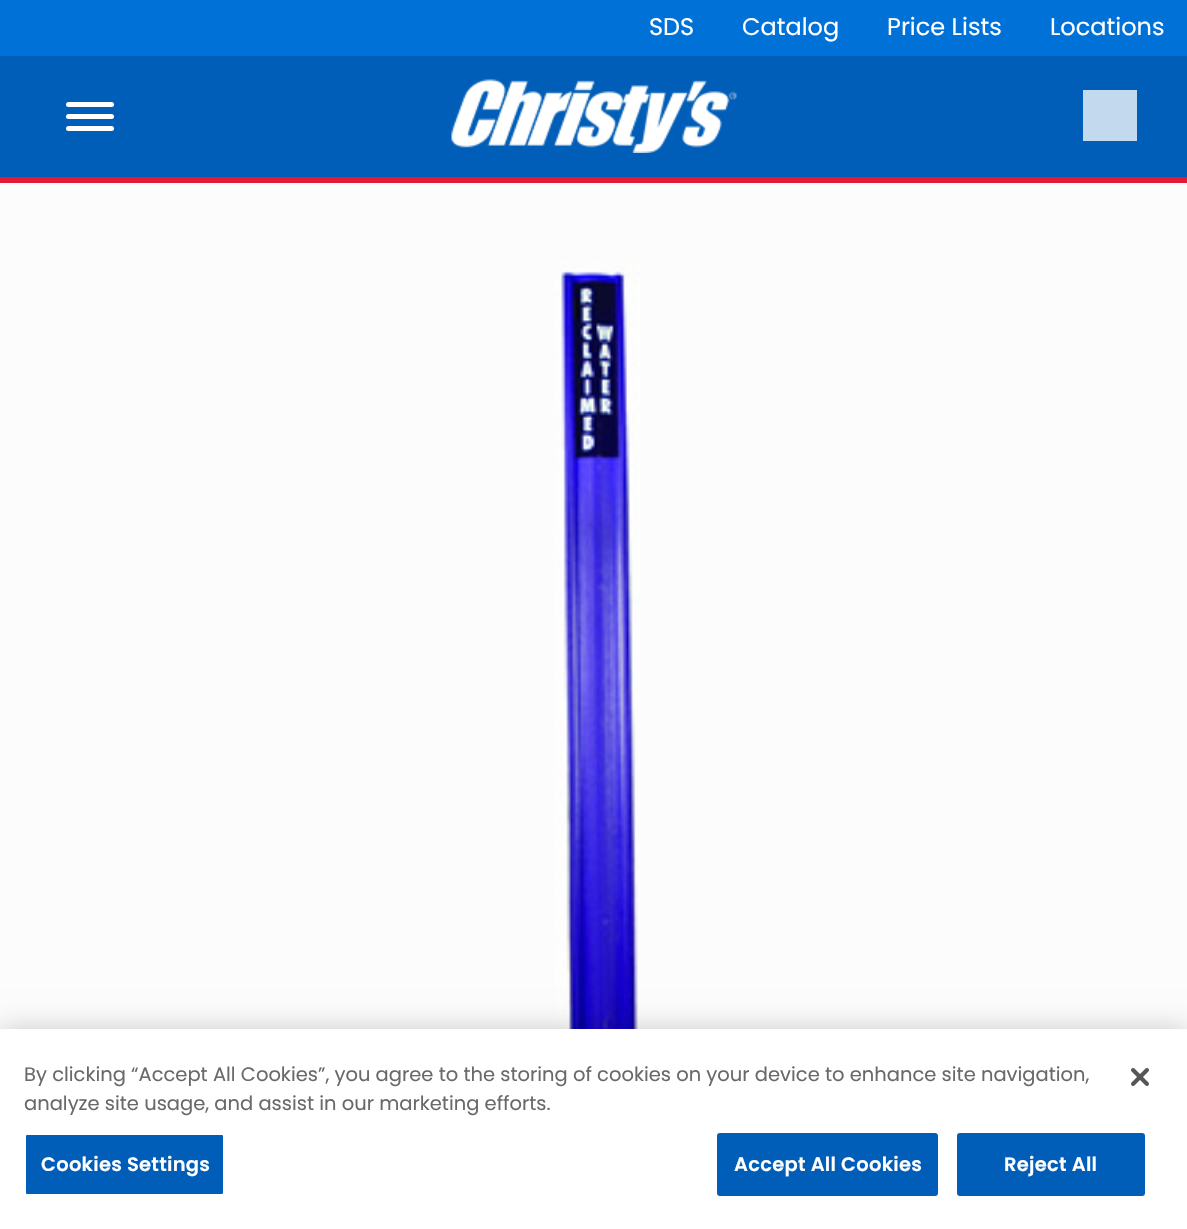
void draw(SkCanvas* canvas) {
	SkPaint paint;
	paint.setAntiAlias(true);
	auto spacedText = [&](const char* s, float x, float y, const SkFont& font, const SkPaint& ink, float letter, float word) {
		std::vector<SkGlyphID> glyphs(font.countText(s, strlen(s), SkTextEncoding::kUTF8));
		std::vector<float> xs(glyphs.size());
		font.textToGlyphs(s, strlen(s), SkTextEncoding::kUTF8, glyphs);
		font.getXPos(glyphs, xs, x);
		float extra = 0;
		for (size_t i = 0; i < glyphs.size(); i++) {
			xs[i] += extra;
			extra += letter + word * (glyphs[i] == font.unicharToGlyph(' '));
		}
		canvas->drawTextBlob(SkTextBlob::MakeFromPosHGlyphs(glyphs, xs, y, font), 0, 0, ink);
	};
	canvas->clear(0xfffdfcfc);
	paint.setColor(0xffe51836);
	canvas->drawRect(SkRect::MakeXYWH(0, 177, 1187, 6), paint);
	paint.setColor(0xff0072d7);
	canvas->drawRect(SkRect::MakeXYWH(0, 0, 1187, 56), paint);
	SkFont f1(fontMgr->matchFamilyStyle("Poppins", SkFontStyle::Normal()), 24);
	f1.setSubpixel(true);
	paint.setColor(0xffffffff);
	canvas->drawString("SDS", 649, 35, f1, paint);
	canvas->drawString("Catalog", 742, 35, f1, paint);
	canvas->drawString("Price Lists", 887, 35, f1, paint);
	canvas->drawString("Locations", 1050, 35, f1, paint);
	paint.setColor(0xff005eb8);
	canvas->drawRect(SkRect::MakeXYWH(0, 56, 1187, 121), paint);
	paint.setColor(0xffffffff);
	canvas->drawRoundRect(SkRect::MakeXYWH(66, 102, 48, 5), 2.5, 2.5, paint);
	canvas->drawRoundRect(SkRect::MakeXYWH(66, 114, 48, 5), 2.5, 2.5, paint);
	canvas->drawRoundRect(SkRect::MakeXYWH(66, 126, 48, 5), 2.5, 2.5, paint);
	canvas->drawImageRect(SkImages::DeferredFromEncodedData(SkData::MakeFromFileName("img1.png")), SkRect::MakeXYWH(451, 79, 286, 74), SkSamplingOptions());
	paint.setColor(0xffc3d9ee);
	canvas->drawRect(SkRect::MakeXYWH(1083, 90, 54, 51), paint);
	canvas->drawImageRect(SkImages::DeferredFromEncodedData(SkData::MakeFromFileName("img2.png")), SkRect::MakeXYWH(555, 262, 85, 767), SkSamplingOptions());
	paint.setColor(0x33000000);
	paint.setMaskFilter(SkMaskFilter::MakeBlur(kNormal_SkBlurStyle, 13.5));
	canvas->drawRect(SkRect::MakeXYWH(0, 1029, 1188, 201), paint);
	paint.setMaskFilter(nullptr);
	paint.setColor(0xffffffff);
	canvas->drawRect(SkRect::MakeXYWH(0, 1029, 1187, 200), paint);
	SkFont f2(fontMgr->matchFamilyStyle("Poppins", SkFontStyle::Normal()), 19.5);
	f2.setSubpixel(true);
	paint.setColor(0xff696969);
	canvas->drawString("By clicking “Accept All Cookies”, you agree to the storing of cookies on your device to enhance site navigation,", 24, 1081, f2, paint);
	canvas->drawString("analyze site usage, and assist in our marketing efforts.", 24, 1110, f2, paint);
	paint.setColor(0xff005eb8);
	canvas->drawRoundRect(SkRect::MakeXYWH(25, 1134, 199, 61), 2, 2, paint);
	paint.setStroke(true);
	paint.setStrokeWidth(2);
	paint.setColor(0xffffffff);
	canvas->drawRoundRect(SkRect::MakeXYWH(25, 1134, 199, 61), 2, 2, paint);
	SkFont f3(fontMgr->matchFamilyStyle("Poppins", SkFontStyle(600, SkFontStyle::kNormal_Width, SkFontStyle::kUpright_Slant)), 19.5);
	f3.setSubpixel(true);
	paint.setStroke(false);
	spacedText("Cookies Settings", 41, 1171, f3, paint, 0.25, 0);
	paint.setColor(0xff005eb8);
	canvas->drawRoundRect(SkRect::MakeXYWH(718, 1134, 219, 61), 2, 2, paint);
	paint.setStroke(true);
	canvas->drawRoundRect(SkRect::MakeXYWH(718, 1134, 219, 61), 2, 2, paint);
	paint.setStroke(false);
	paint.setColor(0xffffffff);
	spacedText("Accept All Cookies", 734, 1171, f3, paint, 0.25, 0);
	paint.setColor(0xff005eb8);
	canvas->drawRoundRect(SkRect::MakeXYWH(958, 1134, 186, 61), 2, 2, paint);
	paint.setStroke(true);
	canvas->drawRoundRect(SkRect::MakeXYWH(958, 1134, 186, 61), 2, 2, paint);
	paint.setStroke(false);
	paint.setColor(0xffffffff);
	spacedText("Reject All", 1004, 1171, f3, paint, 0.25, 0);
	canvas->drawImageRect(SkImages::DeferredFromEncodedData(SkData::MakeFromFileName("img3.png")), SkRect::MakeXYWH(1131, 1068, 18, 18), SkSamplingOptions());
}
